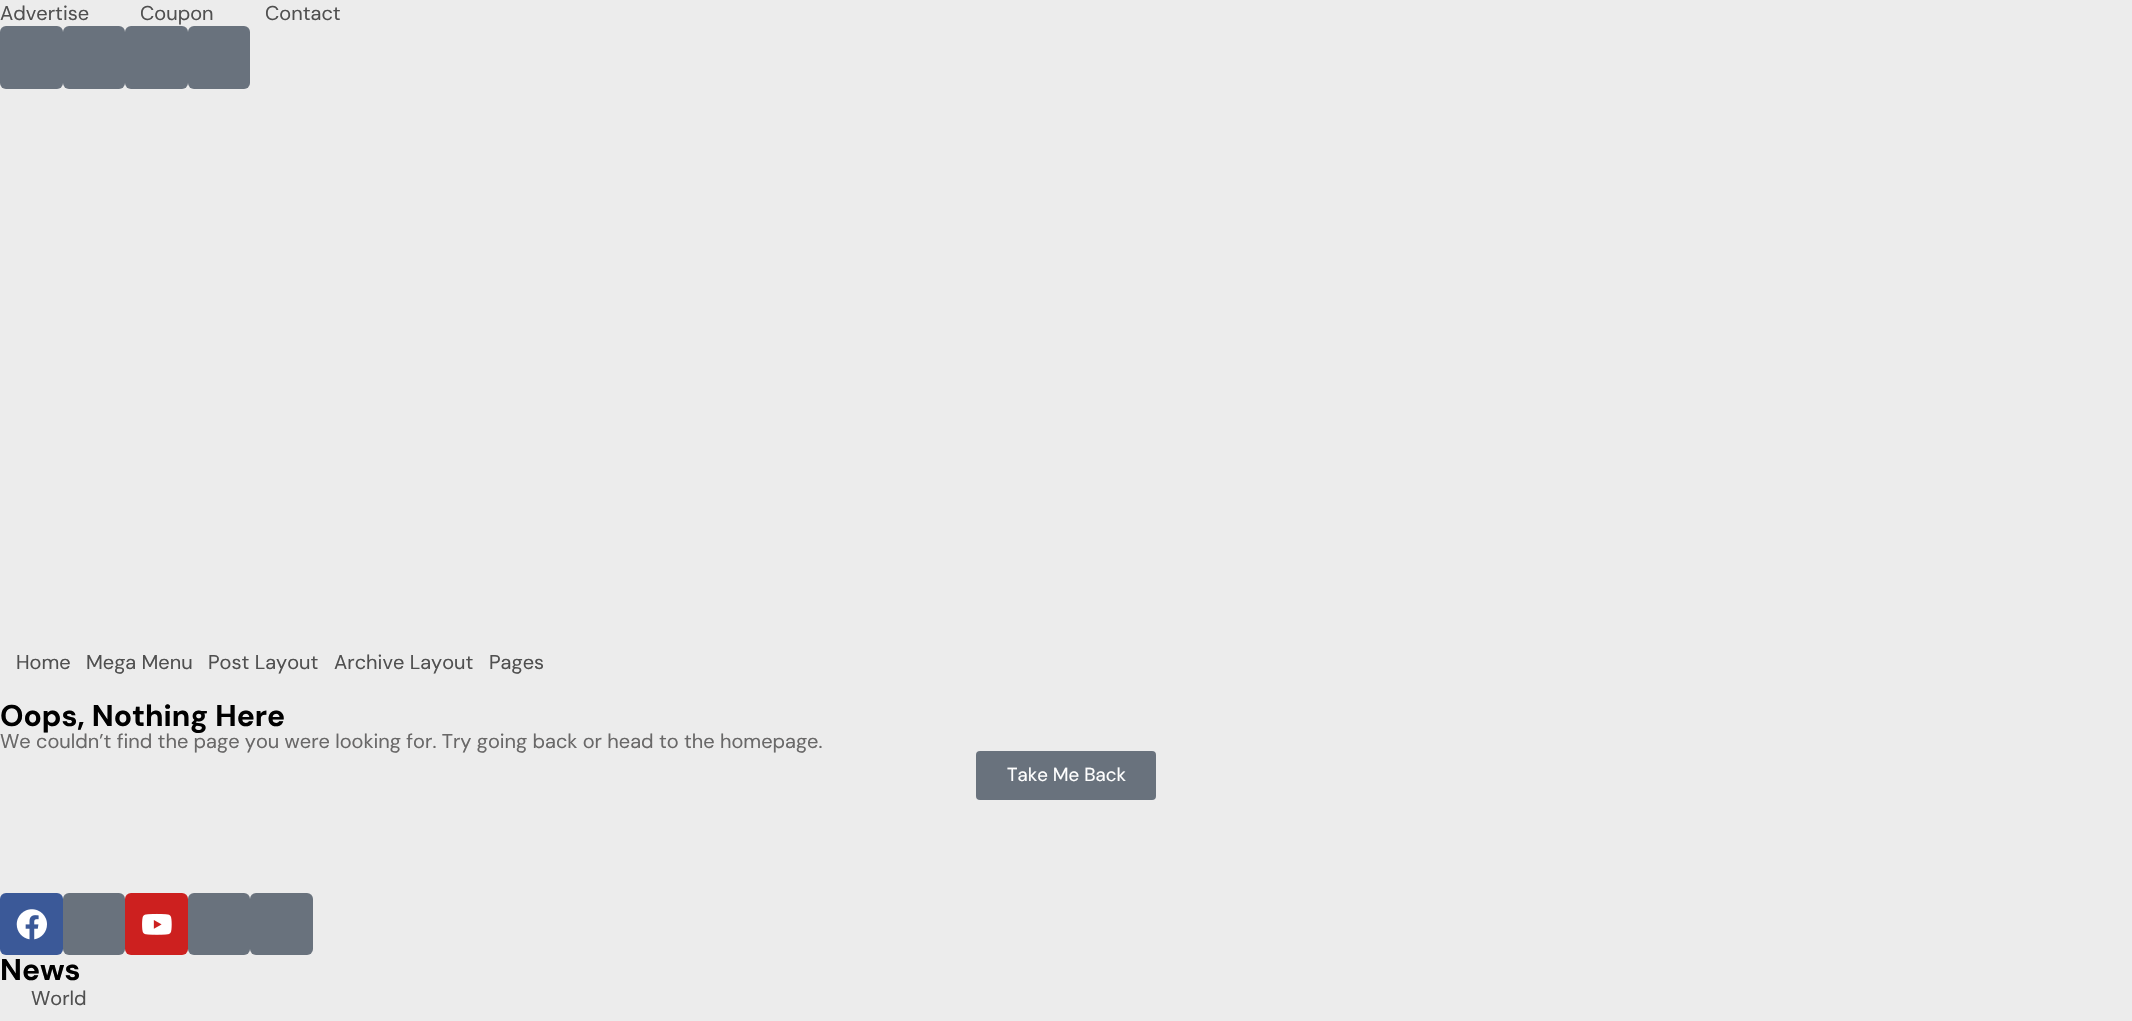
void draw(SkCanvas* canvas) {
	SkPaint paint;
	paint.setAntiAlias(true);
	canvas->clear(0xffececec);
	SkFont f1(fontMgr->matchFamilyStyle("DM Sans", SkFontStyle::Normal()), 20);
	f1.setSubpixel(true);
	paint.setColor(0xff505050);
	canvas->drawString("Advertise", 0, 20, f1, paint);
	canvas->drawString("Coupon", 140, 20, f1, paint);
	canvas->drawString("Contact", 265, 20, f1, paint);
	paint.setColor(0xff69727d);
	canvas->drawRoundRect(SkRect::MakeXYWH(0, 26, 63, 63), 6, 6, paint);
	canvas->drawRoundRect(SkRect::MakeXYWH(63, 26, 62, 63), 6, 6, paint);
	canvas->drawRoundRect(SkRect::MakeXYWH(125, 26, 63, 63), 6, 6, paint);
	canvas->drawRoundRect(SkRect::MakeXYWH(188, 26, 62, 63), 6, 6, paint);
	paint.setColor(0xff505050);
	canvas->drawString("Home", 16, 669, f1, paint);
	canvas->drawString("Mega Menu", 86, 669, f1, paint);
	canvas->drawString("Post Layout", 208, 669, f1, paint);
	canvas->drawString("Archive Layout", 334, 669, f1, paint);
	canvas->drawString("Pages", 489, 669, f1, paint);
	SkFont f2(fontMgr->matchFamilyStyle("DM Sans", SkFontStyle::Bold()), 30);
	f2.setSubpixel(true);
	paint.setColor(0xff000000);
	canvas->drawString("Oops, Nothing Here", 0, 726, f2, paint);
	paint.setColor(0xff696868);
	canvas->drawString("We couldn’t find the page you were looking for. Try going back or head to the homepage.", 0, 748, f1, paint);
	paint.setColor(0xff69727d);
	canvas->drawRoundRect(SkRect::MakeXYWH(976, 751, 180, 49), 4, 4, paint);
	SkFont f3(fontMgr->matchFamilyStyle("DM Sans", SkFontStyle::Normal()), 18.75);
	f3.setSubpixel(true);
	paint.setColor(0xffffffff);
	canvas->drawString("Take Me Back", 1007, 781, f3, paint);
	paint.setColor(0xff3b5998);
	canvas->drawRoundRect(SkRect::MakeXYWH(0, 893, 63, 62), 6, 6, paint);
	canvas->drawImageRect(SkImages::DeferredFromEncodedData(SkData::MakeFromFileName("img1.png")), SkRect::MakeXYWH(16, 909, 31, 31), SkSamplingOptions());
	paint.setColor(0xff69727d);
	canvas->drawRoundRect(SkRect::MakeXYWH(63, 893, 62, 62), 6, 6, paint);
	paint.setColor(0xffcd201f);
	canvas->drawRoundRect(SkRect::MakeXYWH(125, 893, 63, 62), 6, 6, paint);
	canvas->drawImageRect(SkImages::DeferredFromEncodedData(SkData::MakeFromFileName("img2.png")), SkRect::MakeXYWH(142, 913, 30, 22), SkSamplingOptions());
	paint.setColor(0xff69727d);
	canvas->drawRoundRect(SkRect::MakeXYWH(188, 893, 62, 62), 6, 6, paint);
	canvas->drawRoundRect(SkRect::MakeXYWH(250, 893, 63, 62), 6, 6, paint);
	paint.setColor(0xff000000);
	canvas->drawString("News", 0, 980, f2, paint);
	paint.setColor(0xff505050);
	canvas->drawString("World", 31, 1005, f1, paint);
}
